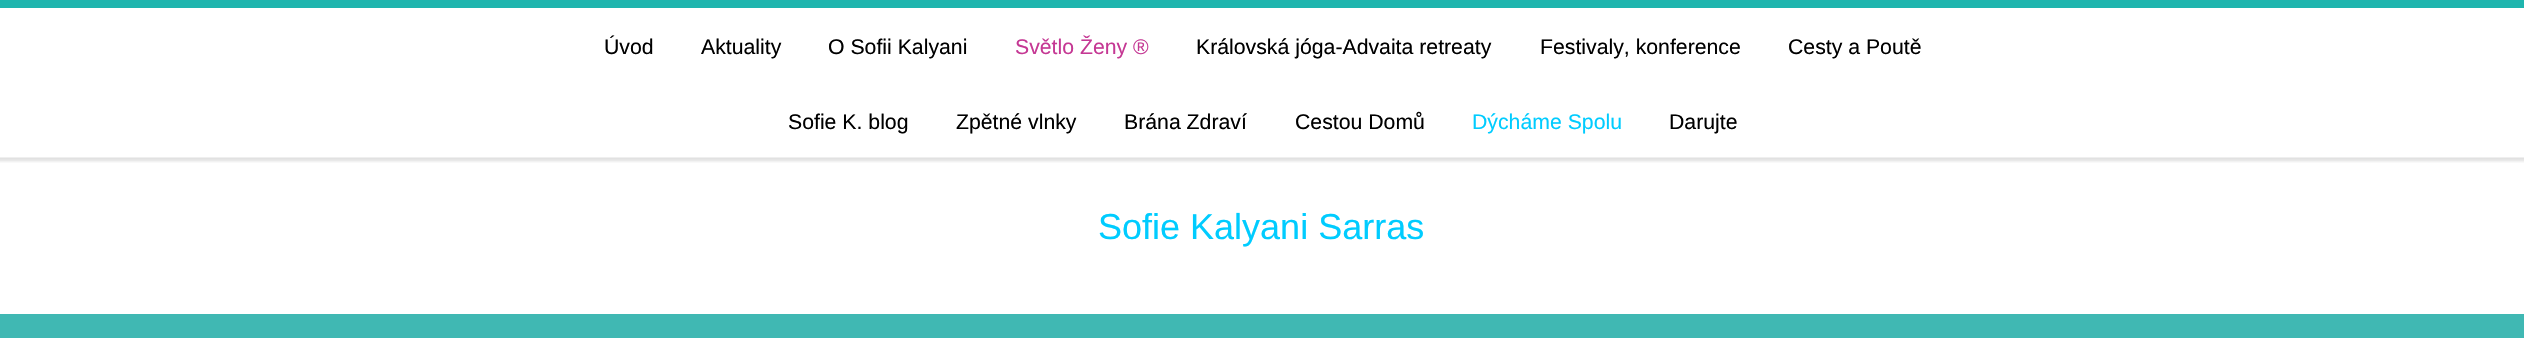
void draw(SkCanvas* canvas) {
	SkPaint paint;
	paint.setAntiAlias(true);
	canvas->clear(0xffffffff);
	paint.setColor(0xff1fb5ae);
	canvas->drawRect(SkRect::MakeXYWH(0, 0, 2524, 8), paint);
	SkFont f1(fontMgr->matchFamilyStyle("Liberation Sans", SkFontStyle::Normal()), 21.25);
	f1.setSubpixel(true);
	paint.setColor(0xff000000);
	canvas->drawString("Úvod", 604, 54, f1, paint);
	canvas->drawString("Aktuality", 701, 54, f1, paint);
	canvas->drawString("O Sofii Kalyani", 828, 54, f1, paint);
	paint.setColor(0xffc53894);
	canvas->drawString("Světlo Ženy ®", 1015, 54, f1, paint);
	paint.setColor(0xff000000);
	canvas->drawString("Královská jóga-Advaita retreaty", 1196, 54, f1, paint);
	canvas->drawString("Festivaly, konference", 1540, 54, f1, paint);
	canvas->drawString("Cesty a Poutě", 1788, 54, f1, paint);
	canvas->drawString("Sofie K. blog", 788, 129, f1, paint);
	canvas->drawString("Zpětné vlnky", 956, 129, f1, paint);
	canvas->drawString("Brána Zdraví", 1124, 129, f1, paint);
	canvas->drawString("Cestou Domů", 1295, 129, f1, paint);
	paint.setColor(0xff00ccff);
	canvas->drawString("Dýcháme Spolu", 1472, 129, f1, paint);
	paint.setColor(0xff000000);
	canvas->drawString("Darujte", 1669, 129, f1, paint);
	canvas->drawImageRect(SkImages::DeferredFromEncodedData(SkData::MakeFromFileName("img1.png")), SkRect::MakeXYWH(0, 157, 2524, 6), SkSamplingOptions());
	SkFont f2(fontMgr->matchFamilyStyle("Liberation Sans", SkFontStyle::Normal()), 36);
	f2.setSubpixel(true);
	paint.setColor(0xff00ccff);
	canvas->drawString("Sofie Kalyani Sarras", 1098, 239, f2, paint);
	paint.setColor(0xff40b8b3);
	canvas->drawRect(SkRect::MakeXYWH(0, 314, 2524, 24), paint);
}
